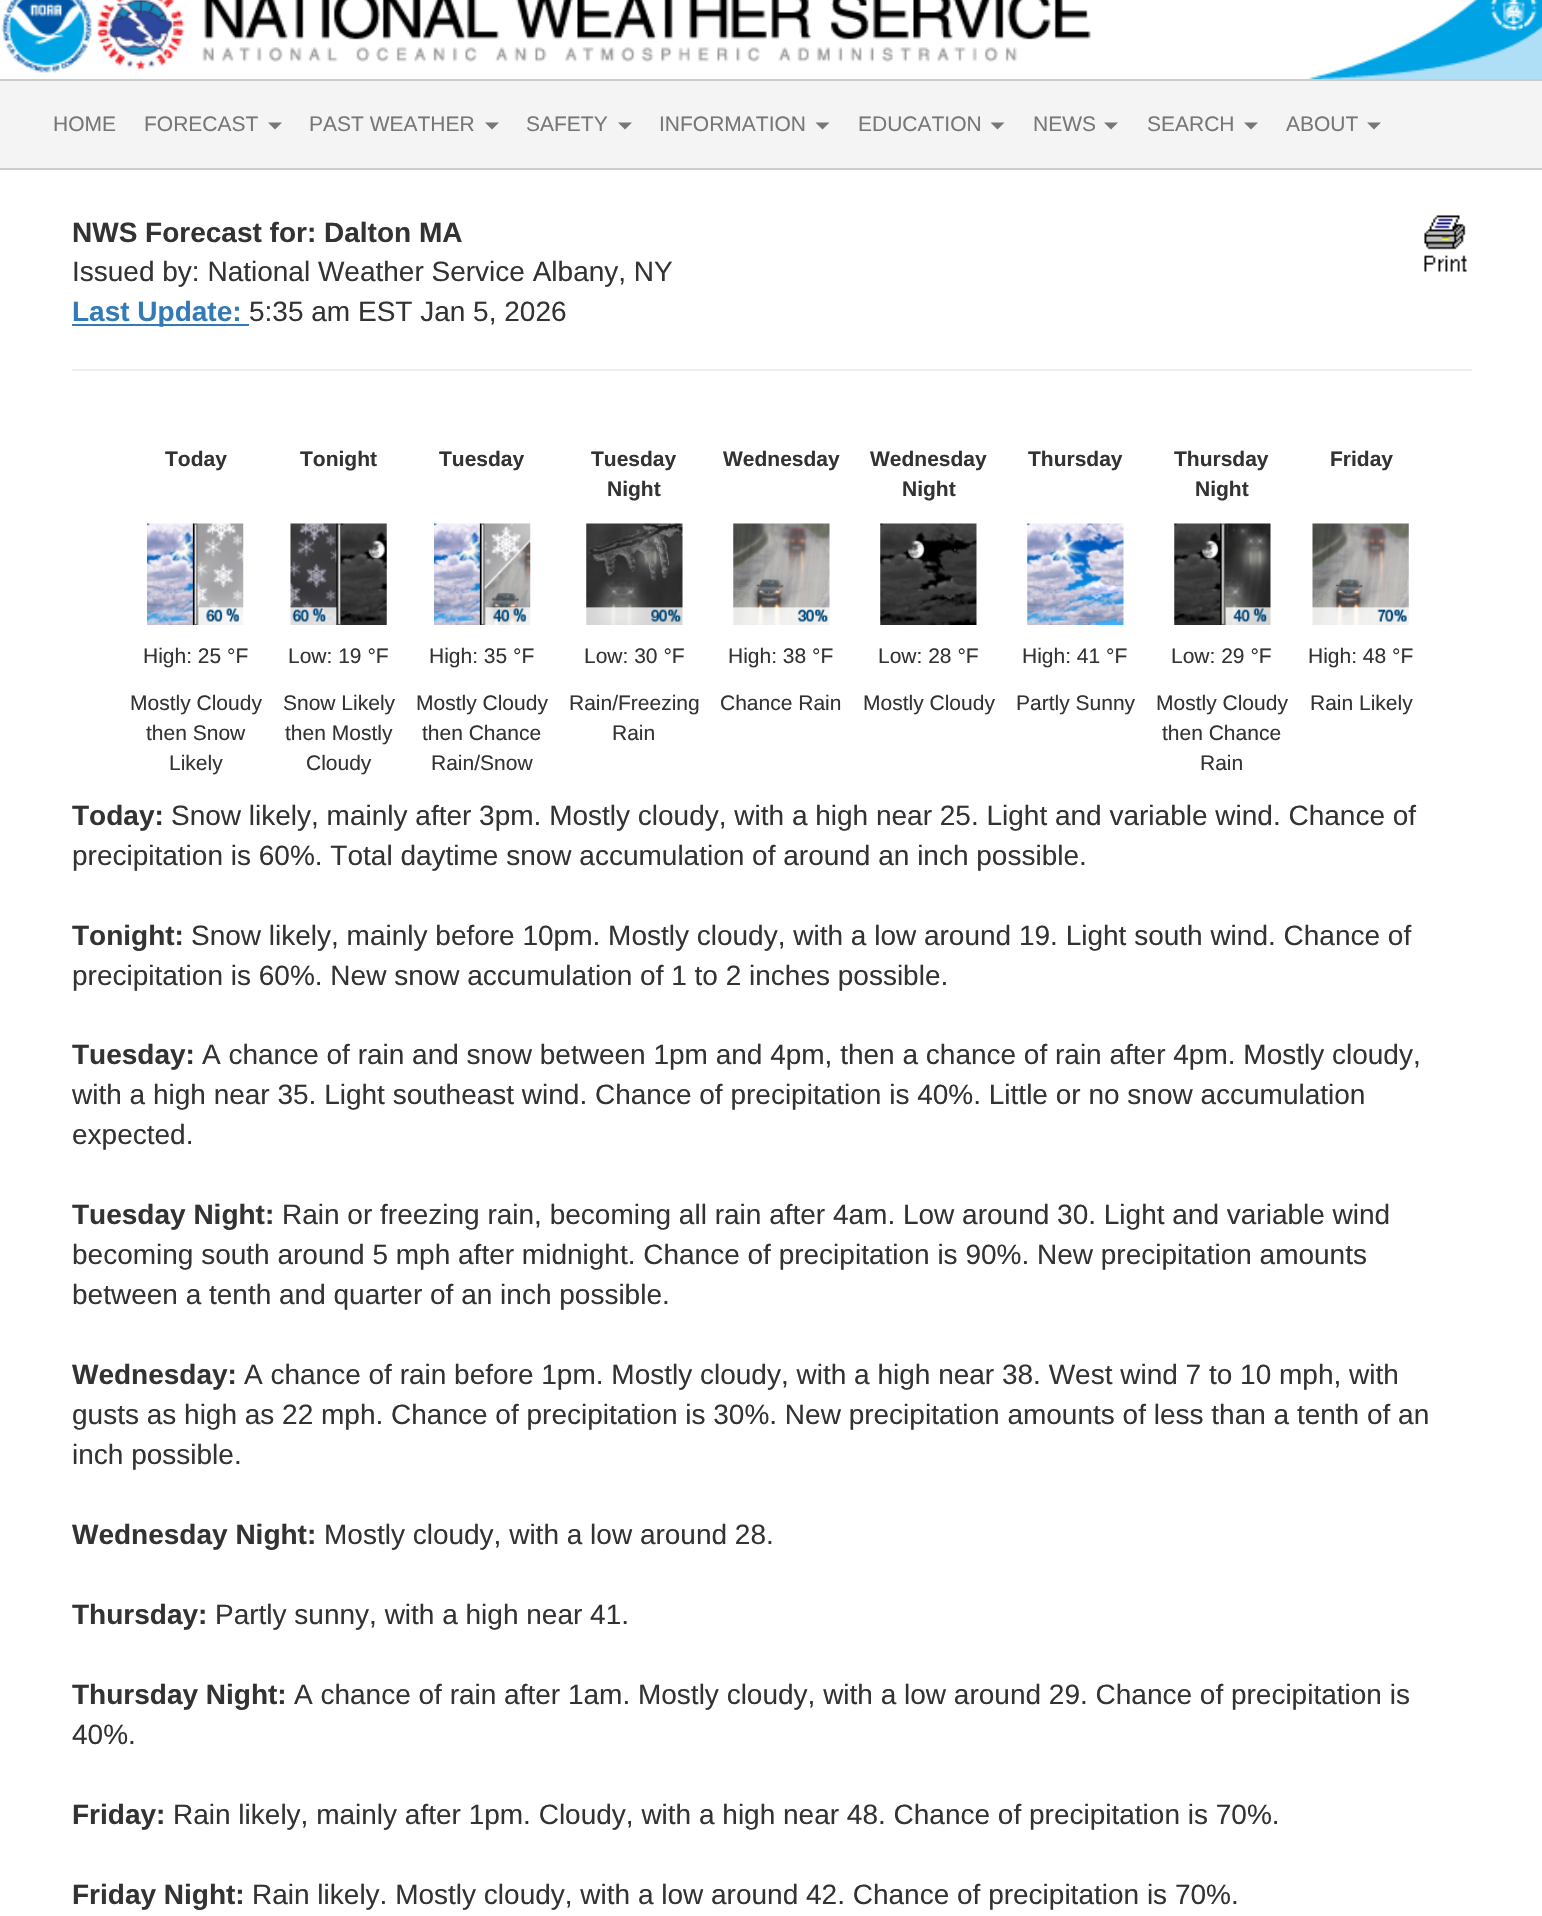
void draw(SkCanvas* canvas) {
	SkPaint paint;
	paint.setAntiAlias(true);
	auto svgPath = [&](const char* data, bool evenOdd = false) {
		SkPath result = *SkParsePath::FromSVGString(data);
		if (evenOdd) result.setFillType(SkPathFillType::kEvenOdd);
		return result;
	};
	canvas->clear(0xffffffff);
	canvas->drawImageRect(SkImages::DeferredFromEncodedData(SkData::MakeFromFileName("img1.png")), SkRect::MakeXYWH(1, 0, 91, 73), SkSamplingOptions());
	canvas->drawImageRect(SkImages::DeferredFromEncodedData(SkData::MakeFromFileName("img2.png")), SkRect::MakeXYWH(97, 0, 994, 71), SkSamplingOptions());
	canvas->drawImageRect(SkImages::DeferredFromEncodedData(SkData::MakeFromFileName("img3.png")), SkRect::MakeXYWH(1308, 0, 234, 79), SkSamplingOptions());
	paint.setColor(0xfff4f4f4);
	canvas->drawRect(SkRect::MakeXYWH(0, 81, 1542, 87), paint);
	paint.setColor(0xffcccccc);
	canvas->drawRect(SkRect::MakeXYWH(0, 79, 1542, 2), paint);
	canvas->drawRect(SkRect::MakeXYWH(0, 168, 1542, 2), paint);
	SkFont f1(fontMgr->matchFamilyStyle("Liberation Sans", SkFontStyle::Normal()), 21);
	f1.setSubpixel(true);
	paint.setColor(0xff777777);
	canvas->drawString("HOME", 53, 131, f1, paint);
	canvas->drawString("FORECAST", 144, 131, f1, paint);
	canvas->drawPath(svgPath("M268 122.5H282L275 129.5Z"), paint);
	canvas->drawString("PAST WEATHER", 309, 131, f1, paint);
	canvas->drawPath(svgPath("M485 122.5H499L492 129.5Z"), paint);
	canvas->drawString("SAFETY", 526, 131, f1, paint);
	canvas->drawPath(svgPath("M618 122.5H632L625 129.5Z"), paint);
	canvas->drawString("INFORMATION", 659, 131, f1, paint);
	canvas->drawPath(svgPath("M815.5 122.5H829.5L822.5 129.5Z"), paint);
	canvas->drawString("EDUCATION", 858, 131, f1, paint);
	canvas->drawPath(svgPath("M990.5 122.5H1004.5L997.5 129.5Z"), paint);
	canvas->drawString("NEWS", 1033, 131, f1, paint);
	canvas->drawPath(svgPath("M1104 122.5H1118L1111 129.5Z"), paint);
	canvas->drawString("SEARCH", 1147, 131, f1, paint);
	canvas->drawPath(svgPath("M1244 122.5H1258L1251 129.5Z"), paint);
	canvas->drawString("ABOUT", 1286, 131, f1, paint);
	canvas->drawPath(svgPath("M1367 122.5H1381L1374 129.5Z"), paint);
	SkFont f2(fontMgr->matchFamilyStyle("Liberation Sans", SkFontStyle::Bold()), 28);
	f2.setSubpixel(true);
	paint.setColor(0xff333333);
	canvas->drawString("NWS Forecast for: Dalton MA", 72, 242, f2, paint);
	SkFont f3(fontMgr->matchFamilyStyle("Liberation Sans", SkFontStyle::Normal()), 28);
	f3.setSubpixel(true);
	canvas->drawString("Issued by: National Weather Service Albany, NY", 72, 281, f3, paint);
	paint.setColor(0xff337ab7);
	canvas->drawRect(SkRect::MakeXYWH(72, 324, 177, 2), paint);
	canvas->drawString("Last Update:", 72, 321, f2, paint);
	paint.setColor(0xff333333);
	canvas->drawString("5:35 am EST Jan 5, 2026", 249, 321, f3, paint);
	canvas->drawImageRect(SkImages::DeferredFromEncodedData(SkData::MakeFromFileName("img4.png")), SkRect::MakeXYWH(1424, 215, 43, 57), SkSamplingOptions());
	paint.setColor(0xffeeeeee);
	canvas->drawRect(SkRect::MakeXYWH(72, 369, 1400, 2), paint);
	SkFont f4(fontMgr->matchFamilyStyle("Liberation Sans", SkFontStyle::Bold()), 21);
	f4.setSubpixel(true);
	paint.setColor(0xff333333);
	canvas->drawString("Today", 165, 466, f4, paint);
	canvas->drawImageRect(SkImages::DeferredFromEncodedData(SkData::MakeFromFileName("img5.png")), SkRect::MakeXYWH(147, 523, 97, 102), SkSamplingOptions());
	canvas->drawString("High: 25 °F", 143, 663, f1, paint);
	canvas->drawString("Mostly Cloudy", 130, 710, f1, paint);
	canvas->drawString("then Snow", 146, 740, f1, paint);
	canvas->drawString("Likely", 169, 770, f1, paint);
	canvas->drawString("Tonight", 300, 466, f4, paint);
	canvas->drawImageRect(SkImages::DeferredFromEncodedData(SkData::MakeFromFileName("img6.png")), SkRect::MakeXYWH(290, 523, 97, 102), SkSamplingOptions());
	canvas->drawString("Low: 19 °F", 288, 663, f1, paint);
	canvas->drawString("Snow Likely", 283, 710, f1, paint);
	canvas->drawString("then Mostly", 285, 740, f1, paint);
	canvas->drawString("Cloudy", 306, 770, f1, paint);
	canvas->drawString("Tuesday", 439, 466, f4, paint);
	canvas->drawImageRect(SkImages::DeferredFromEncodedData(SkData::MakeFromFileName("img7.png")), SkRect::MakeXYWH(434, 523, 97, 102), SkSamplingOptions());
	canvas->drawString("High: 35 °F", 429, 663, f1, paint);
	canvas->drawString("Mostly Cloudy", 416, 710, f1, paint);
	canvas->drawString("then Chance", 422, 740, f1, paint);
	canvas->drawString("Rain/Snow", 431, 770, f1, paint);
	canvas->drawString("Tuesday", 591, 466, f4, paint);
	canvas->drawString("Night", 607, 496, f4, paint);
	canvas->drawImageRect(SkImages::DeferredFromEncodedData(SkData::MakeFromFileName("img8.png")), SkRect::MakeXYWH(586, 523, 97, 102), SkSamplingOptions());
	canvas->drawString("Low: 30 °F", 584, 663, f1, paint);
	canvas->drawString("Rain/Freezing", 569, 710, f1, paint);
	canvas->drawString("Rain", 612, 740, f1, paint);
	canvas->drawString("Wednesday", 723, 466, f4, paint);
	canvas->drawImageRect(SkImages::DeferredFromEncodedData(SkData::MakeFromFileName("img9.png")), SkRect::MakeXYWH(733, 523, 97, 102), SkSamplingOptions());
	canvas->drawString("High: 38 °F", 728, 663, f1, paint);
	canvas->drawString("Chance Rain", 720, 710, f1, paint);
	canvas->drawString("Wednesday", 870, 466, f4, paint);
	canvas->drawString("Night", 902, 496, f4, paint);
	canvas->drawImageRect(SkImages::DeferredFromEncodedData(SkData::MakeFromFileName("img10.png")), SkRect::MakeXYWH(880, 523, 97, 102), SkSamplingOptions());
	canvas->drawString("Low: 28 °F", 878, 663, f1, paint);
	canvas->drawString("Mostly Cloudy", 863, 710, f1, paint);
	canvas->drawString("Thursday", 1028, 466, f4, paint);
	canvas->drawImageRect(SkImages::DeferredFromEncodedData(SkData::MakeFromFileName("img11.png")), SkRect::MakeXYWH(1027, 523, 97, 102), SkSamplingOptions());
	canvas->drawString("High: 41 °F", 1022, 663, f1, paint);
	canvas->drawString("Partly Sunny", 1016, 710, f1, paint);
	canvas->drawString("Thursday", 1174, 466, f4, paint);
	canvas->drawString("Night", 1195, 496, f4, paint);
	canvas->drawImageRect(SkImages::DeferredFromEncodedData(SkData::MakeFromFileName("img12.png")), SkRect::MakeXYWH(1174, 523, 97, 102), SkSamplingOptions());
	canvas->drawString("Low: 29 °F", 1171, 663, f1, paint);
	canvas->drawString("Mostly Cloudy", 1156, 710, f1, paint);
	canvas->drawString("then Chance", 1162, 740, f1, paint);
	canvas->drawString("Rain", 1200, 770, f1, paint);
	canvas->drawString("Friday", 1330, 466, f4, paint);
	canvas->drawImageRect(SkImages::DeferredFromEncodedData(SkData::MakeFromFileName("img13.png")), SkRect::MakeXYWH(1312, 523, 97, 102), SkSamplingOptions());
	canvas->drawString("High: 48 °F", 1308, 663, f1, paint);
	canvas->drawString("Rain Likely", 1310, 710, f1, paint);
	canvas->drawString("Today:", 72, 825, f2, paint);
	canvas->drawString("Snow likely, mainly after 3pm. Mostly cloudy, with a high near 25. Light and variable wind. Chance of", 171, 825, f3, paint);
	canvas->drawString("precipitation is 60%. Total daytime snow accumulation of around an inch possible.", 72, 865, f3, paint);
	canvas->drawString("Tonight:", 72, 945, f2, paint);
	canvas->drawString("Snow likely, mainly before 10pm. Mostly cloudy, with a low around 19. Light south wind. Chance of", 191, 945, f3, paint);
	canvas->drawString("precipitation is 60%. New snow accumulation of 1 to 2 inches possible.", 72, 985, f3, paint);
	canvas->drawString("Tuesday:", 72, 1064, f2, paint);
	canvas->drawString("A chance of rain and snow between 1pm and 4pm, then a chance of rain after 4pm. Mostly cloudy,", 202, 1064, f3, paint);
	canvas->drawString("with a high near 35. Light southeast wind. Chance of precipitation is 40%. Little or no snow accumulation", 72, 1104, f3, paint);
	canvas->drawString("expected.", 72, 1144, f3, paint);
	canvas->drawString("Tuesday Night:", 72, 1224, f2, paint);
	canvas->drawString("Rain or freezing rain, becoming all rain after 4am. Low around 30. Light and variable wind", 282, 1224, f3, paint);
	canvas->drawString("becoming south around 5 mph after midnight. Chance of precipitation is 90%. New precipitation amounts", 72, 1264, f3, paint);
	canvas->drawString("between a tenth and quarter of an inch possible.", 72, 1304, f3, paint);
	canvas->drawString("Wednesday:", 72, 1384, f2, paint);
	canvas->drawString("A chance of rain before 1pm. Mostly cloudy, with a high near 38. West wind 7 to 10 mph, with", 244, 1384, f3, paint);
	canvas->drawString("gusts as high as 22 mph. Chance of precipitation is 30%. New precipitation amounts of less than a tenth of an", 72, 1424, f3, paint);
	canvas->drawString("inch possible.", 72, 1464, f3, paint);
	canvas->drawString("Wednesday Night:", 72, 1544, f2, paint);
	canvas->drawString("Mostly cloudy, with a low around 28.", 324, 1544, f3, paint);
	canvas->drawString("Thursday:", 72, 1624, f2, paint);
	canvas->drawString("Partly sunny, with a high near 41.", 215, 1624, f3, paint);
	canvas->drawString("Thursday Night:", 72, 1704, f2, paint);
	canvas->drawString("A chance of rain after 1am. Mostly cloudy, with a low around 29. Chance of precipitation is", 294, 1704, f3, paint);
	canvas->drawString("40%.", 72, 1744, f3, paint);
	canvas->drawString("Friday:", 72, 1824, f2, paint);
	canvas->drawString("Rain likely, mainly after 1pm. Cloudy, with a high near 48. Chance of precipitation is 70%.", 173, 1824, f3, paint);
	canvas->drawString("Friday Night:", 72, 1904, f2, paint);
	canvas->drawString("Rain likely. Mostly cloudy, with a low around 42. Chance of precipitation is 70%.", 252, 1904, f3, paint);
}
